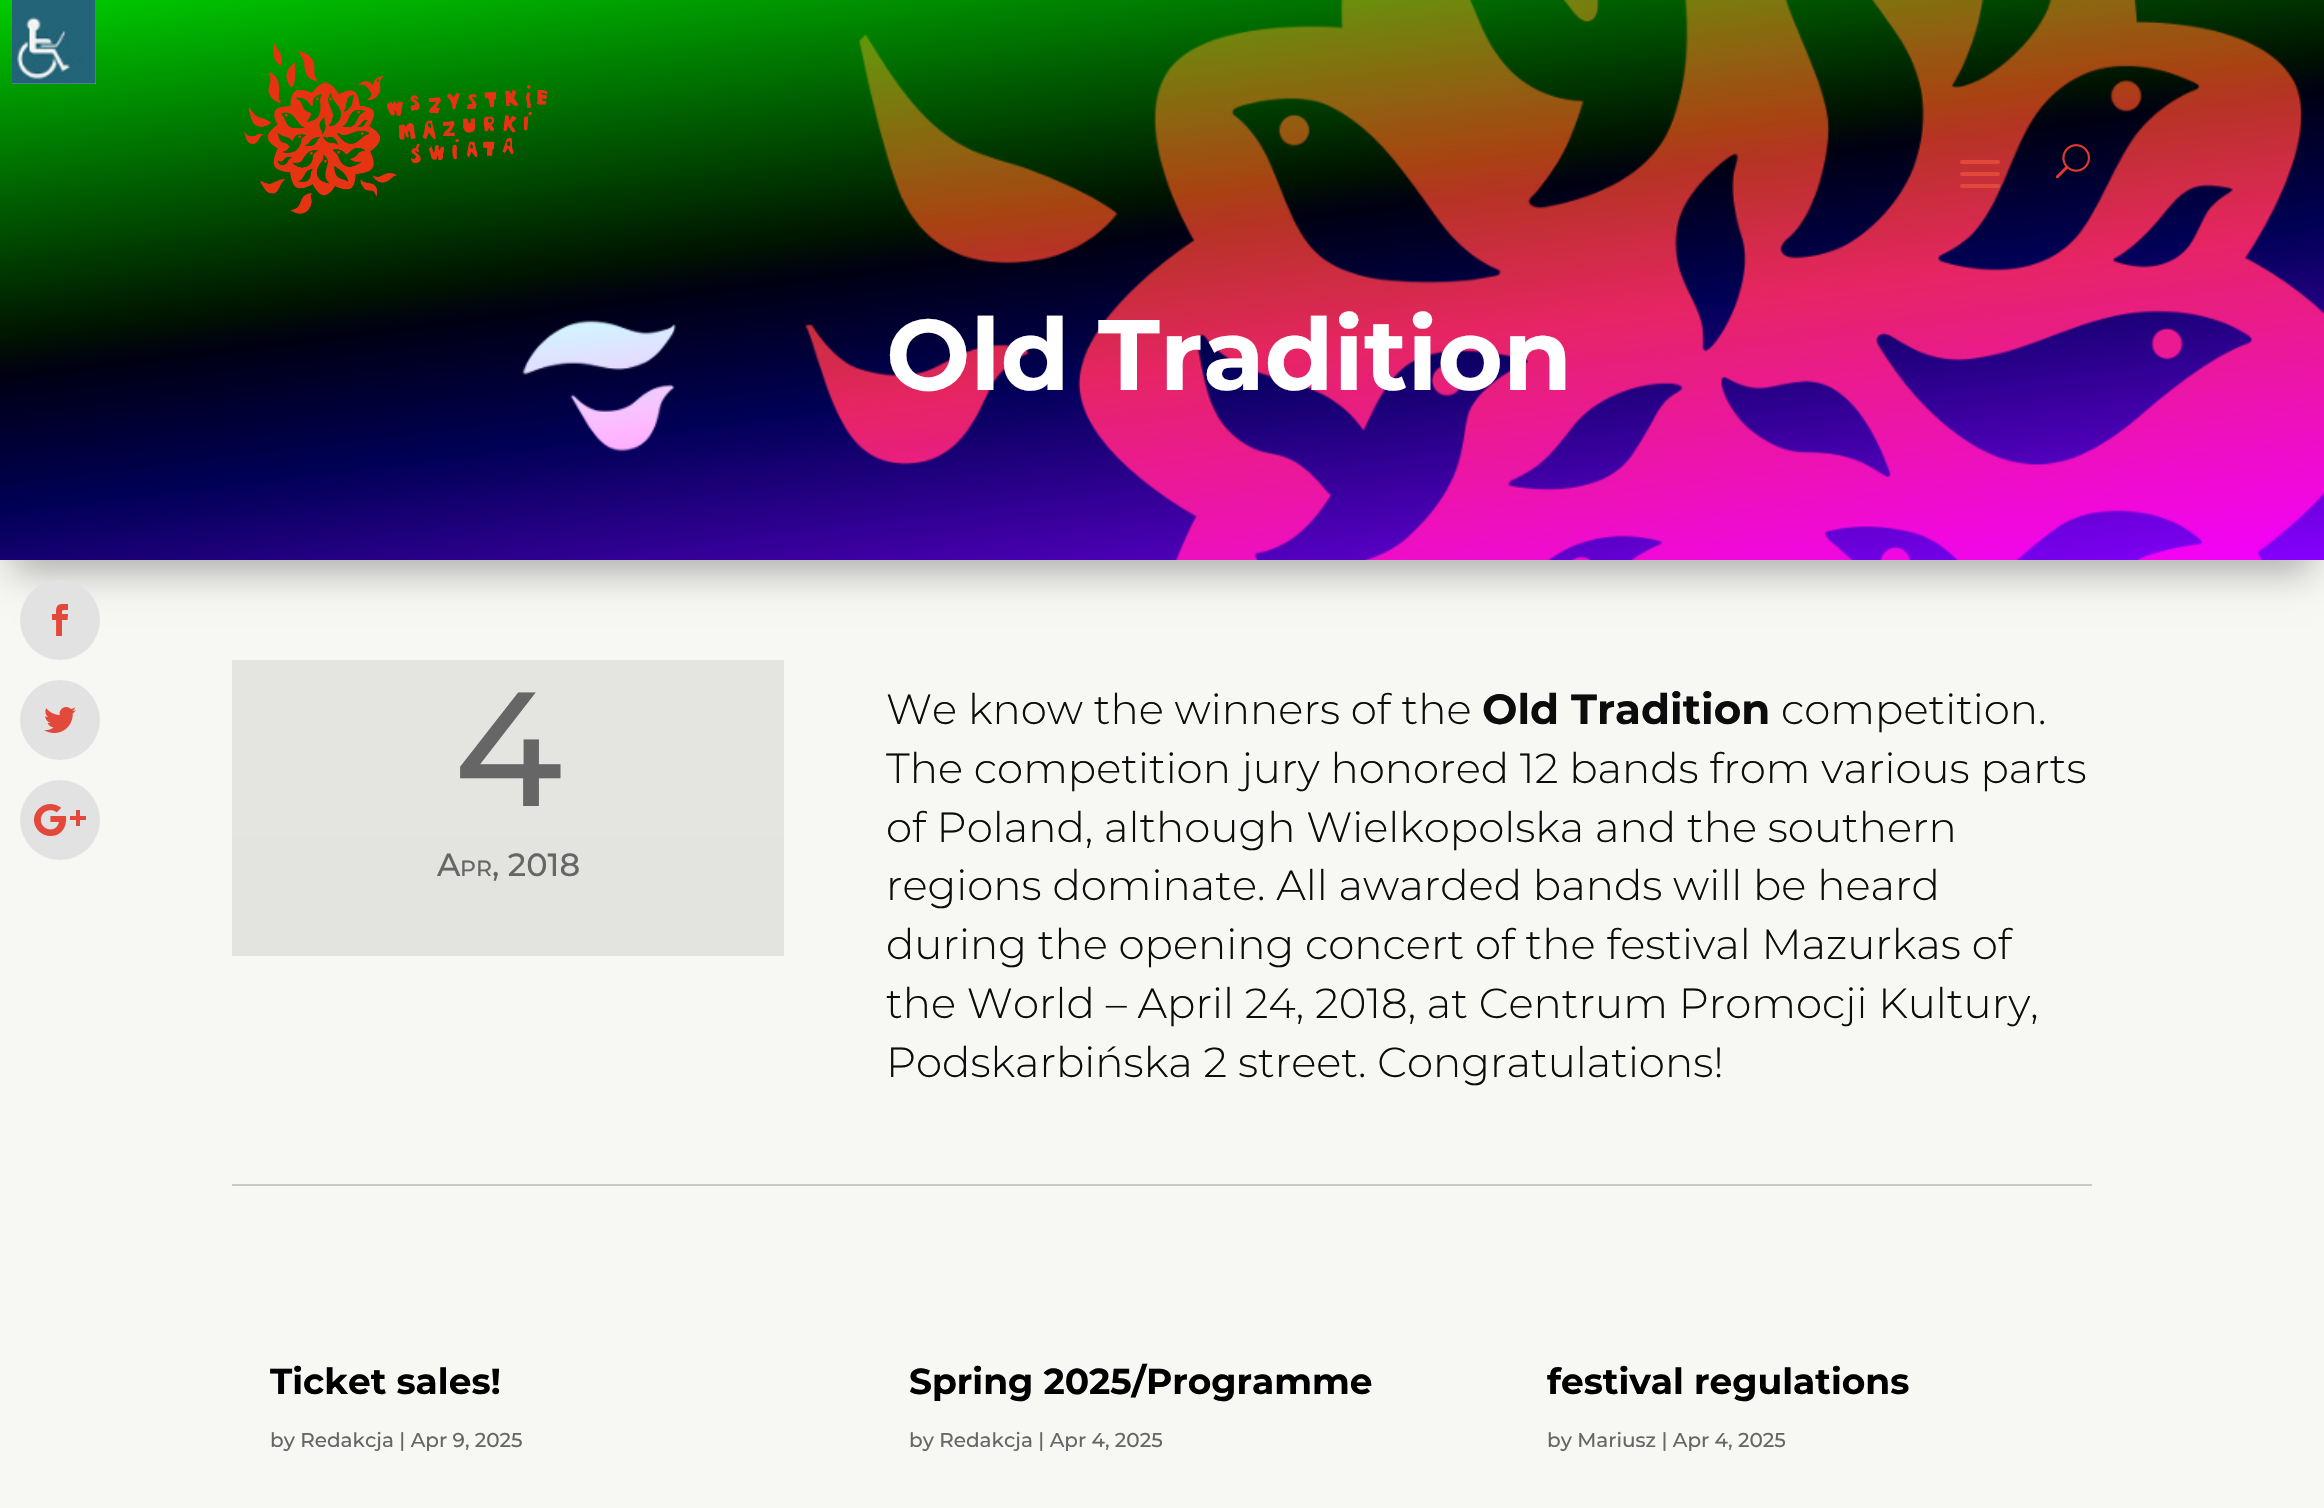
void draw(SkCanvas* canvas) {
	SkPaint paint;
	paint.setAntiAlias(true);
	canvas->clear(0xfff7f7f4);
	paint.setColor(0x4d000000);
	paint.setMaskFilter(SkMaskFilter::MakeBlur(kNormal_SkBlurStyle, 18));
	canvas->drawRect(SkRect::MakeXYWH(12, 36, 2300, 536), paint);
	paint.setMaskFilter(nullptr);
	canvas->drawImageRect(SkImages::DeferredFromEncodedData(SkData::MakeFromFileName("img8.png")), SkRect::MakeXYWH(0, 0, 2324, 560), SkSamplingOptions());
	paint.setColor(0xffffffff);
	canvas->drawRect(SkRect::MakeXYWH(12, 0, 84, 84), paint);
	canvas->drawImageRect(SkImages::DeferredFromEncodedData(SkData::MakeFromFileName("img1.png")), SkRect::MakeXYWH(12, 0, 84, 84), SkSamplingOptions());
	paint.setColor(0xffe2e2e2);
	canvas->drawCircle(60, 620, 40, paint);
	canvas->drawImageRect(SkImages::DeferredFromEncodedData(SkData::MakeFromFileName("img2.png")), SkRect::MakeXYWH(52, 604, 17, 32), SkSamplingOptions());
	canvas->drawCircle(60, 720, 40, paint);
	canvas->drawImageRect(SkImages::DeferredFromEncodedData(SkData::MakeFromFileName("img3.png")), SkRect::MakeXYWH(44, 707, 32, 26), SkSamplingOptions());
	canvas->drawCircle(60, 820, 40, paint);
	canvas->drawImageRect(SkImages::DeferredFromEncodedData(SkData::MakeFromFileName("img4.png")), SkRect::MakeXYWH(34, 804, 52, 32), SkSamplingOptions());
	canvas->drawImageRect(SkImages::DeferredFromEncodedData(SkData::MakeFromFileName("img5.png")), SkRect::MakeXYWH(244, 42, 304, 172), SkSamplingOptions());
	canvas->drawImageRect(SkImages::DeferredFromEncodedData(SkData::MakeFromFileName("img6.png")), SkRect::MakeXYWH(1960, 160, 40, 28), SkSamplingOptions());
	canvas->drawImageRect(SkImages::DeferredFromEncodedData(SkData::MakeFromFileName("img7.png")), SkRect::MakeXYWH(2055, 144, 35, 35), SkSamplingOptions());
	SkFont f1(fontMgr->matchFamilyStyle("Montserrat", SkFontStyle::Bold()), 100);
	f1.setSubpixel(true);
	paint.setColor(0xffffffff);
	canvas->drawString("Old Tradition", 886, 390, f1, paint);
	paint.setColor(0xffe4e4e0);
	canvas->drawRect(SkRect::MakeXYWH(232, 660, 552, 178), paint);
	SkFont f2(fontMgr->matchFamilyStyle("Montserrat", SkFontStyle(500, SkFontStyle::kNormal_Width, SkFontStyle::kUpright_Slant)), 162);
	f2.setSubpixel(true);
	paint.setColor(0xff666666);
	canvas->drawString("4", 454, 806, f2, paint);
	paint.setColor(0xffe3e3e0);
	canvas->drawRect(SkRect::MakeXYWH(232, 838, 552, 118), paint);
	SkFont f3(fontMgr->matchFamilyStyle("Montserrat", SkFontStyle(500, SkFontStyle::kNormal_Width, SkFontStyle::kUpright_Slant)), 32);
	f3.setSubpixel(true);
	paint.setColor(0xff666666);
	canvas->drawString("A", 437, 876, f3, paint);
	SkFont f4(fontMgr->matchFamilyStyle("Montserrat", SkFontStyle(500, SkFontStyle::kNormal_Width, SkFontStyle::kUpright_Slant)), 22);
	f4.setSubpixel(true);
	canvas->drawString("PR", 460, 876, f4, paint);
	canvas->drawString(", 2018", 492, 876, f3, paint);
	SkFont f5(fontMgr->matchFamilyStyle("Montserrat", SkFontStyle(300, SkFontStyle::kNormal_Width, SkFontStyle::kUpright_Slant)), 42);
	f5.setSubpixel(true);
	paint.setColor(0xff0c0c0c);
	canvas->drawString("We know the winners of the", 886, 724, f5, paint);
	SkFont f6(fontMgr->matchFamilyStyle("Montserrat", SkFontStyle::Bold()), 42);
	f6.setSubpixel(true);
	canvas->drawString("Old Tradition", 1482, 724, f6, paint);
	canvas->drawString("competition.", 1781, 724, f5, paint);
	canvas->drawString("The competition jury honored 12 bands from various parts", 886, 783, f5, paint);
	canvas->drawString("of Poland, although Wielkopolska and the southern", 886, 842, f5, paint);
	canvas->drawString("regions dominate. All awarded bands will be heard", 886, 900, f5, paint);
	canvas->drawString("during the opening concert of the festival Mazurkas of", 886, 959, f5, paint);
	canvas->drawString("the World – April 24, 2018, at Centrum Promocji Kultury,", 886, 1018, f5, paint);
	canvas->drawString("Podskarbińska 2 street. Congratulations!", 886, 1077, f5, paint);
	paint.setColor(0xffc9c9c9);
	canvas->drawRect(SkRect::MakeXYWH(232, 1184, 1860, 2), paint);
	SkFont f7(fontMgr->matchFamilyStyle("Montserrat", SkFontStyle::Bold()), 36);
	f7.setSubpixel(true);
	paint.setColor(0xff000000);
	canvas->drawString("Ticket sales!", 270, 1394, f7, paint);
	SkFont f8(fontMgr->matchFamilyStyle("Montserrat", SkFontStyle(500, SkFontStyle::kNormal_Width, SkFontStyle::kUpright_Slant)), 20);
	f8.setSubpixel(true);
	paint.setColor(0xff666666);
	canvas->drawString("by Redakcja | Apr 9, 2025", 270, 1447, f8, paint);
	paint.setColor(0xff000000);
	canvas->drawString("Spring 2025/Programme", 909, 1394, f7, paint);
	paint.setColor(0xff666666);
	canvas->drawString("by Redakcja | Apr 4, 2025", 909, 1447, f8, paint);
	paint.setColor(0xff000000);
	canvas->drawString("festival regulations", 1547, 1394, f7, paint);
	paint.setColor(0xff666666);
	canvas->drawString("by Mariusz | Apr 4, 2025", 1547, 1447, f8, paint);
}
